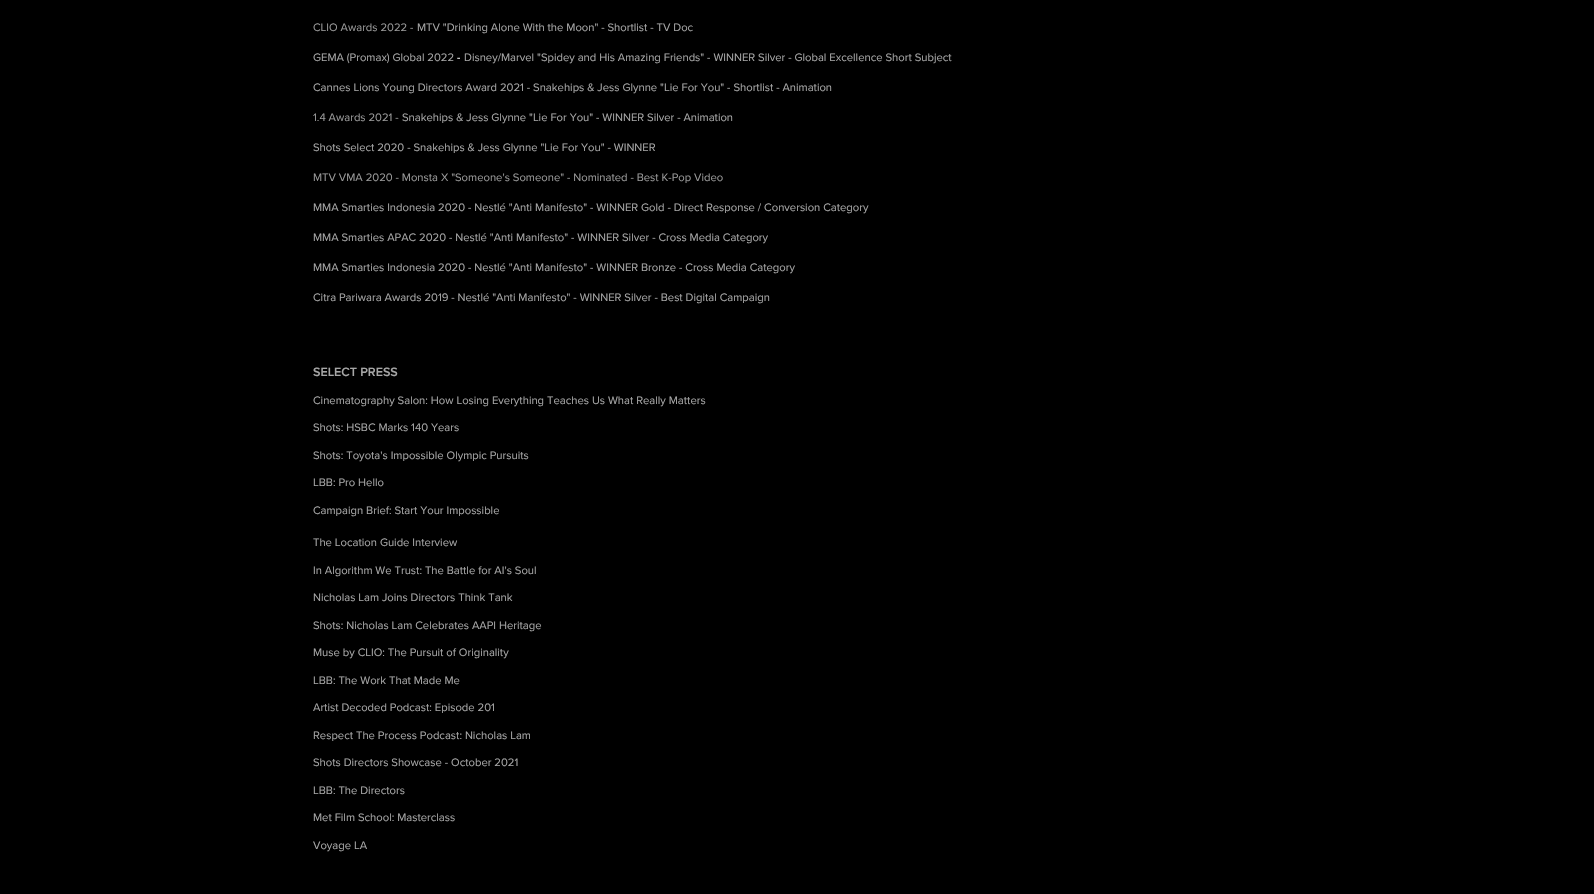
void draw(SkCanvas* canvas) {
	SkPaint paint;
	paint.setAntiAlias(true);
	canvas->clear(0xff000000);
	SkFont f1(fontMgr->matchFamilyStyle("Proxima Nova", SkFontStyle::Normal()), 11.25);
	f1.setSubpixel(true);
	paint.setColor(0xff999999);
	canvas->drawString("CLIO Awards 2022 -", 313, 31, f1, paint);
	paint.setColor(0xffa6a6a6);
	canvas->drawString("MTV \"Drinking Alone With the Moon\" - Shortlist - TV Doc", 417, 31, f1, paint);
	canvas->drawString("GEMA (Promax) Global 2022", 313, 61, f1, paint);
	paint.setColor(0xffffffff);
	canvas->drawString("-", 457, 61, f1, paint);
	paint.setColor(0xffa6a6a6);
	canvas->drawString("Disney/Marvel \"Spidey and His Amazing Friends\" - WINNER Silver - Global Excellence Short Subject", 464, 61, f1, paint);
	canvas->drawString("Cannes Lions Young Directors Award 2021 - Snakehips & Jess Glynne \"Lie For You\" - Shortlist - Animation", 313, 91, f1, paint);
	paint.setColor(0xff999999);
	canvas->drawString("1.4 Awards 2021 -", 313, 121, f1, paint);
	paint.setColor(0xffa6a6a6);
	canvas->drawString("Snakehips & Jess Glynne \"Lie For You\" - WINNER Silver - Animation", 402, 121, f1, paint);
	canvas->drawString("Shots Select 2020 - Snakehips & Jess Glynne \"Lie For You\" - WINNER", 313, 151, f1, paint);
	paint.setColor(0xff999999);
	canvas->drawString("MTV VMA 2020 - Monsta X \"Someone's Someone\" - Nominated - Best K-Pop Video", 313, 181, f1, paint);
	paint.setColor(0xffa6a6a6);
	canvas->drawString("MMA Smarties Indonesia 2020 - Nestlé \"Anti Manifesto\" - WINNER Gold - Direct Response / Conversion Category", 313, 211, f1, paint);
	canvas->drawString("MMA Smarties APAC 2020 - Nestlé \"Anti Manifesto\" - WINNER Silver - Cross Media Category", 313, 241, f1, paint);
	canvas->drawString("MMA Smarties Indonesia 2020 - Nestlé \"Anti Manifesto\" - WINNER Bronze - Cross Media Category", 313, 271, f1, paint);
	canvas->drawString("Citra Pariwara Awards 2019 - Nestlé \"Anti Manifesto\" - WINNER Silver - Best Digital Campaign", 313, 301, f1, paint);
	SkFont f2(fontMgr->matchFamilyStyle("Proxima Nova", SkFontStyle(600, SkFontStyle::kNormal_Width, SkFontStyle::kUpright_Slant)), 12.5);
	f2.setSubpixel(true);
	canvas->drawString("SELECT PRESS", 313, 376, f2, paint);
	canvas->drawString("Cinematography Salon: How Losing Everything Teaches Us What Really Matters", 313, 404, f1, paint);
	canvas->drawString("Shots: HSBC Marks 140 Years", 313, 431, f1, paint);
	canvas->drawString("Shots: Toyota's Impossible Olympic Pursuits", 313, 459, f1, paint);
	canvas->drawString("LBB: Pro Hello", 313, 486, f1, paint);
	canvas->drawString("Campaign Brief: Start Your Impossible", 313, 514, f1, paint);
	canvas->drawString("The Location Guide Interview", 313, 546, f1, paint);
	canvas->drawString("In Algorithm We Trust: The Battle for AI's Soul", 313, 574, f1, paint);
	canvas->drawString("Nicholas Lam Joins Directors Think Tank", 313, 601, f1, paint);
	canvas->drawString("Shots: Nicholas Lam Celebrates AAPI Heritage", 313, 629, f1, paint);
	canvas->drawString("Muse by CLIO: The Pursuit of Originality", 313, 656, f1, paint);
	canvas->drawString("LBB: The Work That Made Me", 313, 684, f1, paint);
	canvas->drawString("Artist Decoded Podcast: Episode 201", 313, 711, f1, paint);
	canvas->drawString("Respect The Process Podcast: Nicholas Lam", 313, 739, f1, paint);
	canvas->drawString("Shots Directors Showcase - October 2021", 313, 766, f1, paint);
	canvas->drawString("LBB: The Directors", 313, 794, f1, paint);
	canvas->drawString("Met Film School: Masterclass", 313, 821, f1, paint);
	canvas->drawString("Voyage LA", 313, 849, f1, paint);
}
